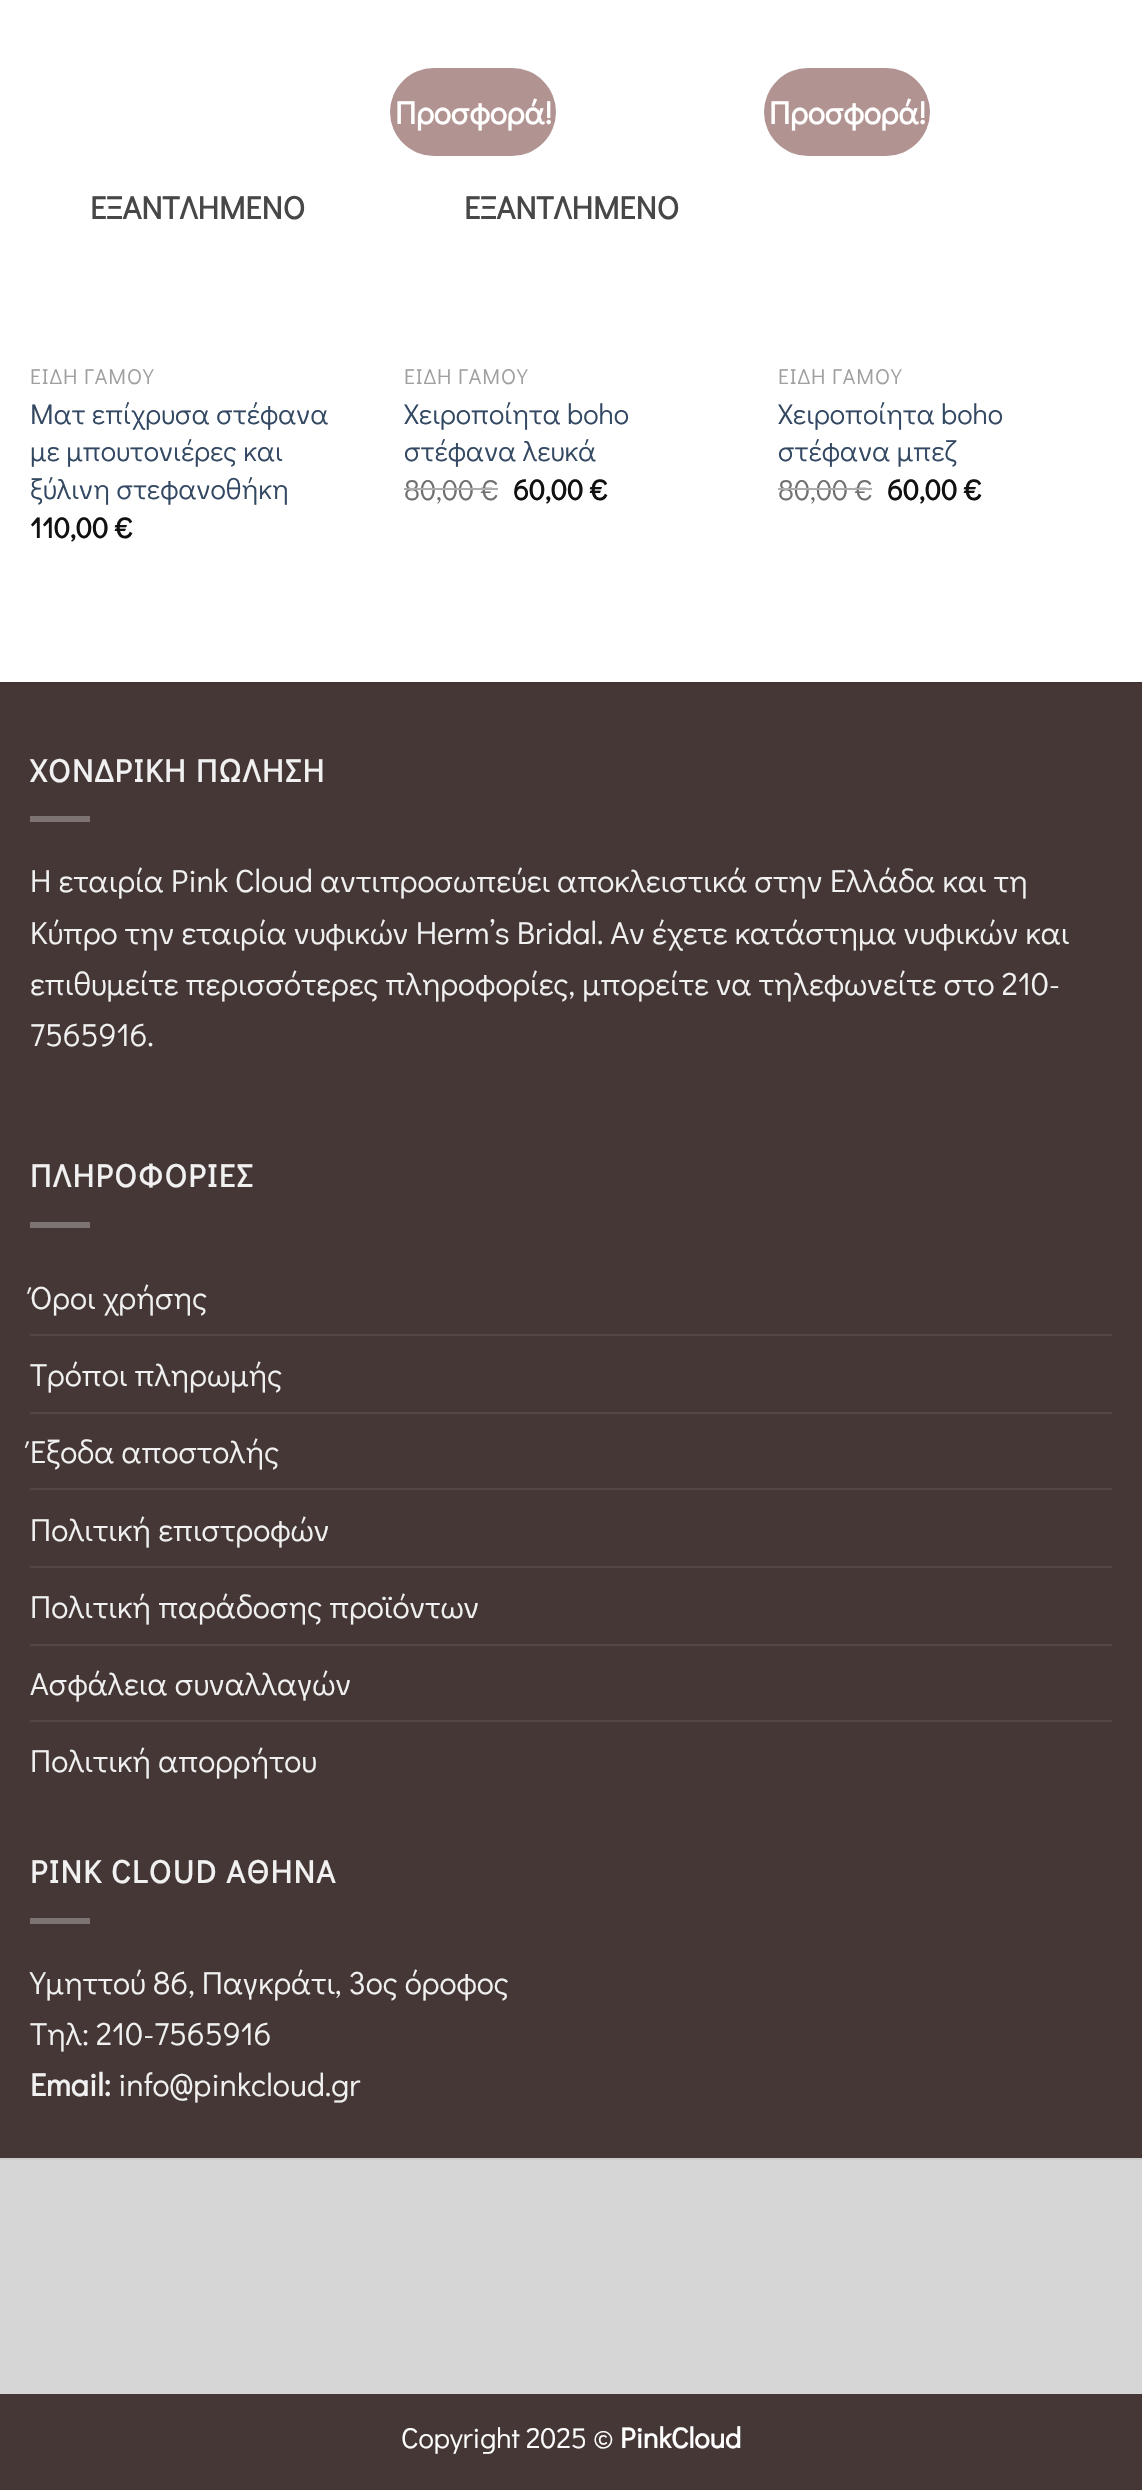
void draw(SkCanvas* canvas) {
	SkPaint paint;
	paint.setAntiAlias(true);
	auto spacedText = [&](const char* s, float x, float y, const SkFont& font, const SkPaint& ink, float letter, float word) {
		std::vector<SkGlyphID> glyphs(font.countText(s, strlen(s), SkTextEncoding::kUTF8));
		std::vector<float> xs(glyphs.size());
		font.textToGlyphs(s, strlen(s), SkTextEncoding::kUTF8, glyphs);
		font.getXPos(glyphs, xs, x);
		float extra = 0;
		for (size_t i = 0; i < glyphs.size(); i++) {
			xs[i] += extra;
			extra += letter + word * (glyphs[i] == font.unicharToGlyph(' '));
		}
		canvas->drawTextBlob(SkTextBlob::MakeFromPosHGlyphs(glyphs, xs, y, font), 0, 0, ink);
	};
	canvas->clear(0xffffffff);
	SkFont f1(fontMgr->matchFamilyStyle("Didact Gothic", SkFontStyle::Bold()), 32);
	f1.setSubpixel(true);
	paint.setColor(0xff474747);
	canvas->drawString("ΕΞΑΝΤΛΗΜΕΝΟ", 90, 219, f1, paint);
	SkFont f2(fontMgr->matchFamilyStyle("Didact Gothic", SkFontStyle::Normal()), 21.5);
	f2.setSubpixel(true);
	paint.setColor(0xffa0a0a0);
	spacedText("ΕΙΔΗ ΓΑΜΟΥ", 30, 384, f2, paint, 1, 0);
	SkFont f3(fontMgr->matchFamilyStyle("Didact Gothic", SkFontStyle::Normal()), 28.75);
	f3.setSubpixel(true);
	paint.setColor(0xff334862);
	canvas->drawString("Ματ επίχρυσα στέφανα", 30, 424, f3, paint);
	canvas->drawString("με μπουτονιέρες και", 30, 461, f3, paint);
	canvas->drawString("ξύλινη στεφανοθήκη", 30, 499, f3, paint);
	SkFont f4(fontMgr->matchFamilyStyle("Didact Gothic", SkFontStyle::Bold()), 28.75);
	f4.setSubpixel(true);
	paint.setColor(0xff111111);
	canvas->drawString("110,00 €", 30, 538, f4, paint);
	paint.setColor(0xffb19391);
	canvas->drawRoundRect(SkRect::MakeXYWH(390, 68, 166, 88), 44, 44, paint);
	paint.setColor(0xffffffff);
	canvas->drawString("Προσφορά!", 395, 124, f1, paint);
	paint.setColor(0xff474747);
	canvas->drawString("ΕΞΑΝΤΛΗΜΕΝΟ", 464, 219, f1, paint);
	paint.setColor(0xffa0a0a0);
	spacedText("ΕΙΔΗ ΓΑΜΟΥ", 404, 384, f2, paint, 1, 0);
	paint.setColor(0xff334862);
	canvas->drawString("Χειροποίητα boho", 404, 424, f3, paint);
	canvas->drawString("στέφανα λευκά", 404, 461, f3, paint);
	paint.setColor(0xff707070);
	canvas->drawString("80,00 €", 404, 500, f3, paint);
	paint.setColor(0xffadadad);
	canvas->drawRect(SkRect::MakeXYWH(404, 488, 94, 2), paint);
	paint.setColor(0xff111111);
	canvas->drawString("60,00 €", 513, 500, f4, paint);
	paint.setColor(0xffb19391);
	canvas->drawRoundRect(SkRect::MakeXYWH(764, 68, 166, 88), 44, 44, paint);
	paint.setColor(0xffffffff);
	canvas->drawString("Προσφορά!", 769, 124, f1, paint);
	paint.setColor(0xffa0a0a0);
	spacedText("ΕΙΔΗ ΓΑΜΟΥ", 778, 384, f2, paint, 1, 0);
	paint.setColor(0xff334862);
	canvas->drawString("Χειροποίητα boho", 778, 424, f3, paint);
	canvas->drawString("στέφανα μπεζ", 778, 461, f3, paint);
	paint.setColor(0xff707070);
	canvas->drawString("80,00 €", 778, 500, f3, paint);
	paint.setColor(0xffadadad);
	canvas->drawRect(SkRect::MakeXYWH(778, 488, 94, 2), paint);
	paint.setColor(0xff111111);
	canvas->drawString("60,00 €", 887, 500, f4, paint);
	paint.setColor(0xff443736);
	canvas->drawRect(SkRect::MakeXYWH(0, 684, 1142, 1474), paint);
	paint.setColor(0xff413433);
	canvas->drawRect(SkRect::MakeXYWH(0, 682, 1142, 2), paint);
	paint.setColor(0xfff1f1f1);
	spacedText("ΧΟΝΔΡΙΚΗ ΠΩΛΗΣΗ", 30, 782, f1, paint, 1.6, 0);
	paint.setColor(0xff7c7372);
	canvas->drawRect(SkRect::MakeXYWH(30, 816, 60, 6), paint);
	SkFont f5(fontMgr->matchFamilyStyle("Didact Gothic", SkFontStyle::Normal()), 32);
	f5.setSubpixel(true);
	paint.setColor(0xfff1f1f1);
	canvas->drawString("Η εταιρία Pink Cloud αντιπροσωπεύει αποκλειστικά στην Ελλάδα και τη", 30, 892, f5, paint);
	canvas->drawString("Κύπρο την εταιρία νυφικών Herm’s Bridal. Αν έχετε κατάστημα νυφικών και", 30, 944, f5, paint);
	canvas->drawString("επιθυμείτε περισσότερες πληροφορίες, μπορείτε να τηλεφωνείτε στο 210-", 30, 995, f5, paint);
	canvas->drawString("7565916.", 30, 1046, f5, paint);
	spacedText("ΠΛΗΡΟΦΟΡΙΕΣ", 30, 1187, f1, paint, 1.6, 0);
	paint.setColor(0xff7c7372);
	canvas->drawRect(SkRect::MakeXYWH(30, 1222, 60, 6), paint);
	paint.setColor(0xfff1f1f1);
	canvas->drawString("Όροι χρήσης", 30, 1309, f5, paint);
	paint.setColor(0xff534746);
	canvas->drawRect(SkRect::MakeXYWH(30, 1334, 1082, 2), paint);
	paint.setColor(0xfff1f1f1);
	canvas->drawString("Τρόποι πληρωμής", 30, 1386, f5, paint);
	paint.setColor(0xff534746);
	canvas->drawRect(SkRect::MakeXYWH(30, 1412, 1082, 2), paint);
	paint.setColor(0xfff1f1f1);
	canvas->drawString("Έξοδα αποστολής", 30, 1463, f5, paint);
	paint.setColor(0xff534746);
	canvas->drawRect(SkRect::MakeXYWH(30, 1488, 1082, 2), paint);
	paint.setColor(0xfff1f1f1);
	canvas->drawString("Πολιτική επιστροφών", 30, 1541, f5, paint);
	paint.setColor(0xff534746);
	canvas->drawRect(SkRect::MakeXYWH(30, 1566, 1082, 2), paint);
	paint.setColor(0xfff1f1f1);
	canvas->drawString("Πολιτική παράδοσης προϊόντων", 30, 1618, f5, paint);
	paint.setColor(0xff534746);
	canvas->drawRect(SkRect::MakeXYWH(30, 1644, 1082, 2), paint);
	paint.setColor(0xfff1f1f1);
	canvas->drawString("Ασφάλεια συναλλαγών", 30, 1695, f5, paint);
	paint.setColor(0xff534746);
	canvas->drawRect(SkRect::MakeXYWH(30, 1720, 1082, 2), paint);
	paint.setColor(0xfff1f1f1);
	canvas->drawString("Πολιτική απορρήτου", 30, 1772, f5, paint);
	spacedText("PINK CLOUD ΑΘΗΝΑ", 30, 1883, f1, paint, 1.6, 0);
	paint.setColor(0xff7c7372);
	canvas->drawRect(SkRect::MakeXYWH(30, 1918, 60, 6), paint);
	paint.setColor(0xfff1f1f1);
	canvas->drawString("Υμηττού 86, Παγκράτι, 3ος όροφος", 30, 1994, f5, paint);
	canvas->drawString("Τηλ: 210-7565916", 30, 2045, f5, paint);
	canvas->drawString("Email:", 30, 2096, f1, paint);
	canvas->drawString("info@pinkcloud.gr", 118, 2096, f5, paint);
	paint.setColor(0xffd6d6d6);
	canvas->drawRect(SkRect::MakeXYWH(0, 2160, 1142, 234), paint);
	paint.setColor(0xffcbcbcb);
	canvas->drawRect(SkRect::MakeXYWH(0, 2158, 1142, 2), paint);
	paint.setColor(0xff443736);
	canvas->drawRect(SkRect::MakeXYWH(0, 2394, 1142, 96), paint);
	paint.setColor(0xffffffff);
	canvas->drawString("Copyright 2025 ©", 401, 2448, f3, paint);
	canvas->drawString("PinkCloud", 620, 2448, f4, paint);
}
